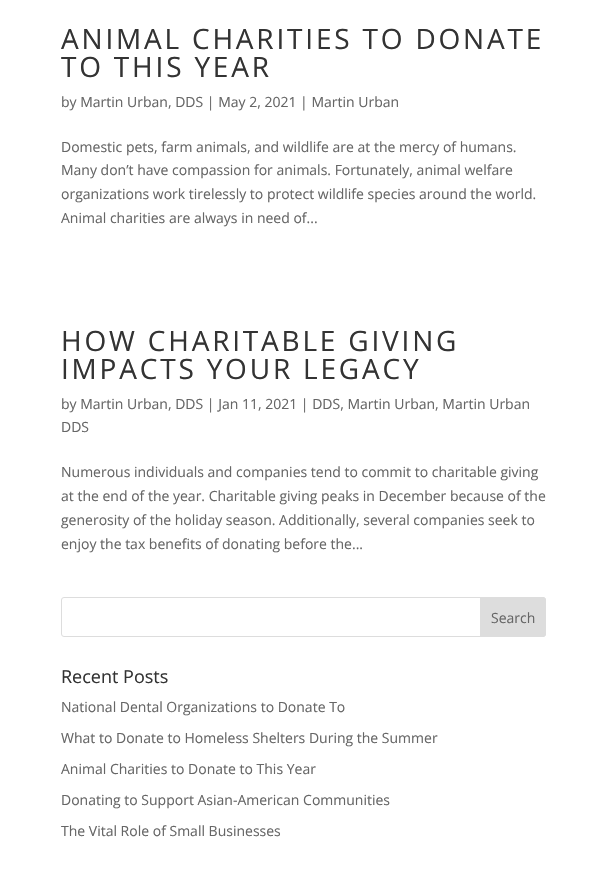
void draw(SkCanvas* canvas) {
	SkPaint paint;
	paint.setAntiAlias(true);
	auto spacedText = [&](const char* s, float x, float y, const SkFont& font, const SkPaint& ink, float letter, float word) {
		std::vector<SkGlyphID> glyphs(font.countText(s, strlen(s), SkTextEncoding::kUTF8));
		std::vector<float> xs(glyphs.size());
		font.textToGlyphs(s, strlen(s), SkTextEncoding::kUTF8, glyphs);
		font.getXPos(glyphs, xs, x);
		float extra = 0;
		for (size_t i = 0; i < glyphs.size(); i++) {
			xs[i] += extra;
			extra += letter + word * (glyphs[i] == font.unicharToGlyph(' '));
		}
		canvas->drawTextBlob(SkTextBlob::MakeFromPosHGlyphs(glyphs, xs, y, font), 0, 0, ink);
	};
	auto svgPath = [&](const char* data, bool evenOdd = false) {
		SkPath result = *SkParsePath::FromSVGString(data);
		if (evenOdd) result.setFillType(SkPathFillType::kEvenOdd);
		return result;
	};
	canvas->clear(0xffffffff);
	SkFont f1(fontMgr->matchFamilyStyle("Open Sans", SkFontStyle::Normal()), 28);
	f1.setSubpixel(true);
	paint.setColor(0xff333333);
	spacedText("ANIMAL CHARITIES TO DONATE", 61, 49, f1, paint, 2.8, 0);
	spacedText("TO THIS YEAR", 61, 77, f1, paint, 2.8, 0);
	SkFont f2(fontMgr->matchFamilyStyle("Open Sans", SkFontStyle::Normal()), 14);
	f2.setSubpixel(true);
	paint.setColor(0xff666666);
	canvas->drawString("by Martin Urban, DDS | May 2, 2021 | Martin Urban", 61, 107, f2, paint);
	canvas->drawString("Domestic pets, farm animals, and wildlife are at the mercy of humans.", 61, 152, f2, paint);
	canvas->drawString("Many don’t have compassion for animals. Fortunately, animal welfare", 61, 175, f2, paint);
	canvas->drawString("organizations work tirelessly to protect wildlife species around the world.", 61, 199, f2, paint);
	canvas->drawString("Animal charities are always in need of...", 61, 223, f2, paint);
	paint.setColor(0xff333333);
	spacedText("HOW CHARITABLE GIVING", 61, 351, f1, paint, 2.8, 0);
	spacedText("IMPACTS YOUR LEGACY", 61, 379, f1, paint, 2.8, 0);
	paint.setColor(0xff666666);
	canvas->drawString("by Martin Urban, DDS | Jan 11, 2021 | DDS, Martin Urban, Martin Urban", 61, 409, f2, paint);
	canvas->drawString("DDS", 61, 432, f2, paint);
	canvas->drawString("Numerous individuals and companies tend to commit to charitable giving", 61, 477, f2, paint);
	canvas->drawString("at the end of the year. Charitable giving peaks in December because of the", 61, 501, f2, paint);
	canvas->drawString("generosity of the holiday season. Additionally, several companies seek to", 61, 525, f2, paint);
	canvas->drawString("enjoy the tax benefits of donating before the...", 61, 549, f2, paint);
	paint.setStroke(true);
	paint.setStrokeWidth(1);
	paint.setColor(0xffdddddd);
	canvas->drawRoundRect(SkRect::MakeXYWH(61.5, 597.5, 484, 39), 2.5, 2.5, paint);
	paint.setStroke(false);
	canvas->drawPath(svgPath("M480.5 597.5H543C544.5 597.5 545.5 598.5 545.5 600V634C545.5 635.5 544.5 636.5 543 636.5H480.5Z"), paint);
	paint.setStroke(true);
	canvas->drawPath(svgPath("M480.5 597.5H543C544.5 597.5 545.5 598.5 545.5 600V634C545.5 635.5 544.5 636.5 543 636.5H480.5Z"), paint);
	paint.setStroke(false);
	paint.setColor(0xff666666);
	canvas->drawString("Search", 491, 623, f2, paint);
	SkFont f3(fontMgr->matchFamilyStyle("Open Sans", SkFontStyle::Normal()), 18);
	f3.setSubpixel(true);
	paint.setColor(0xff333333);
	canvas->drawString("Recent Posts", 61, 683, f3, paint);
	paint.setColor(0xff666666);
	canvas->drawString("National Dental Organizations to Donate To", 61, 712, f2, paint);
	canvas->drawString("What to Donate to Homeless Shelters During the Summer", 61, 743, f2, paint);
	canvas->drawString("Animal Charities to Donate to This Year", 61, 774, f2, paint);
	canvas->drawString("Donating to Support Asian-American Communities", 61, 805, f2, paint);
	canvas->drawString("The Vital Role of Small Businesses", 61, 836, f2, paint);
}
